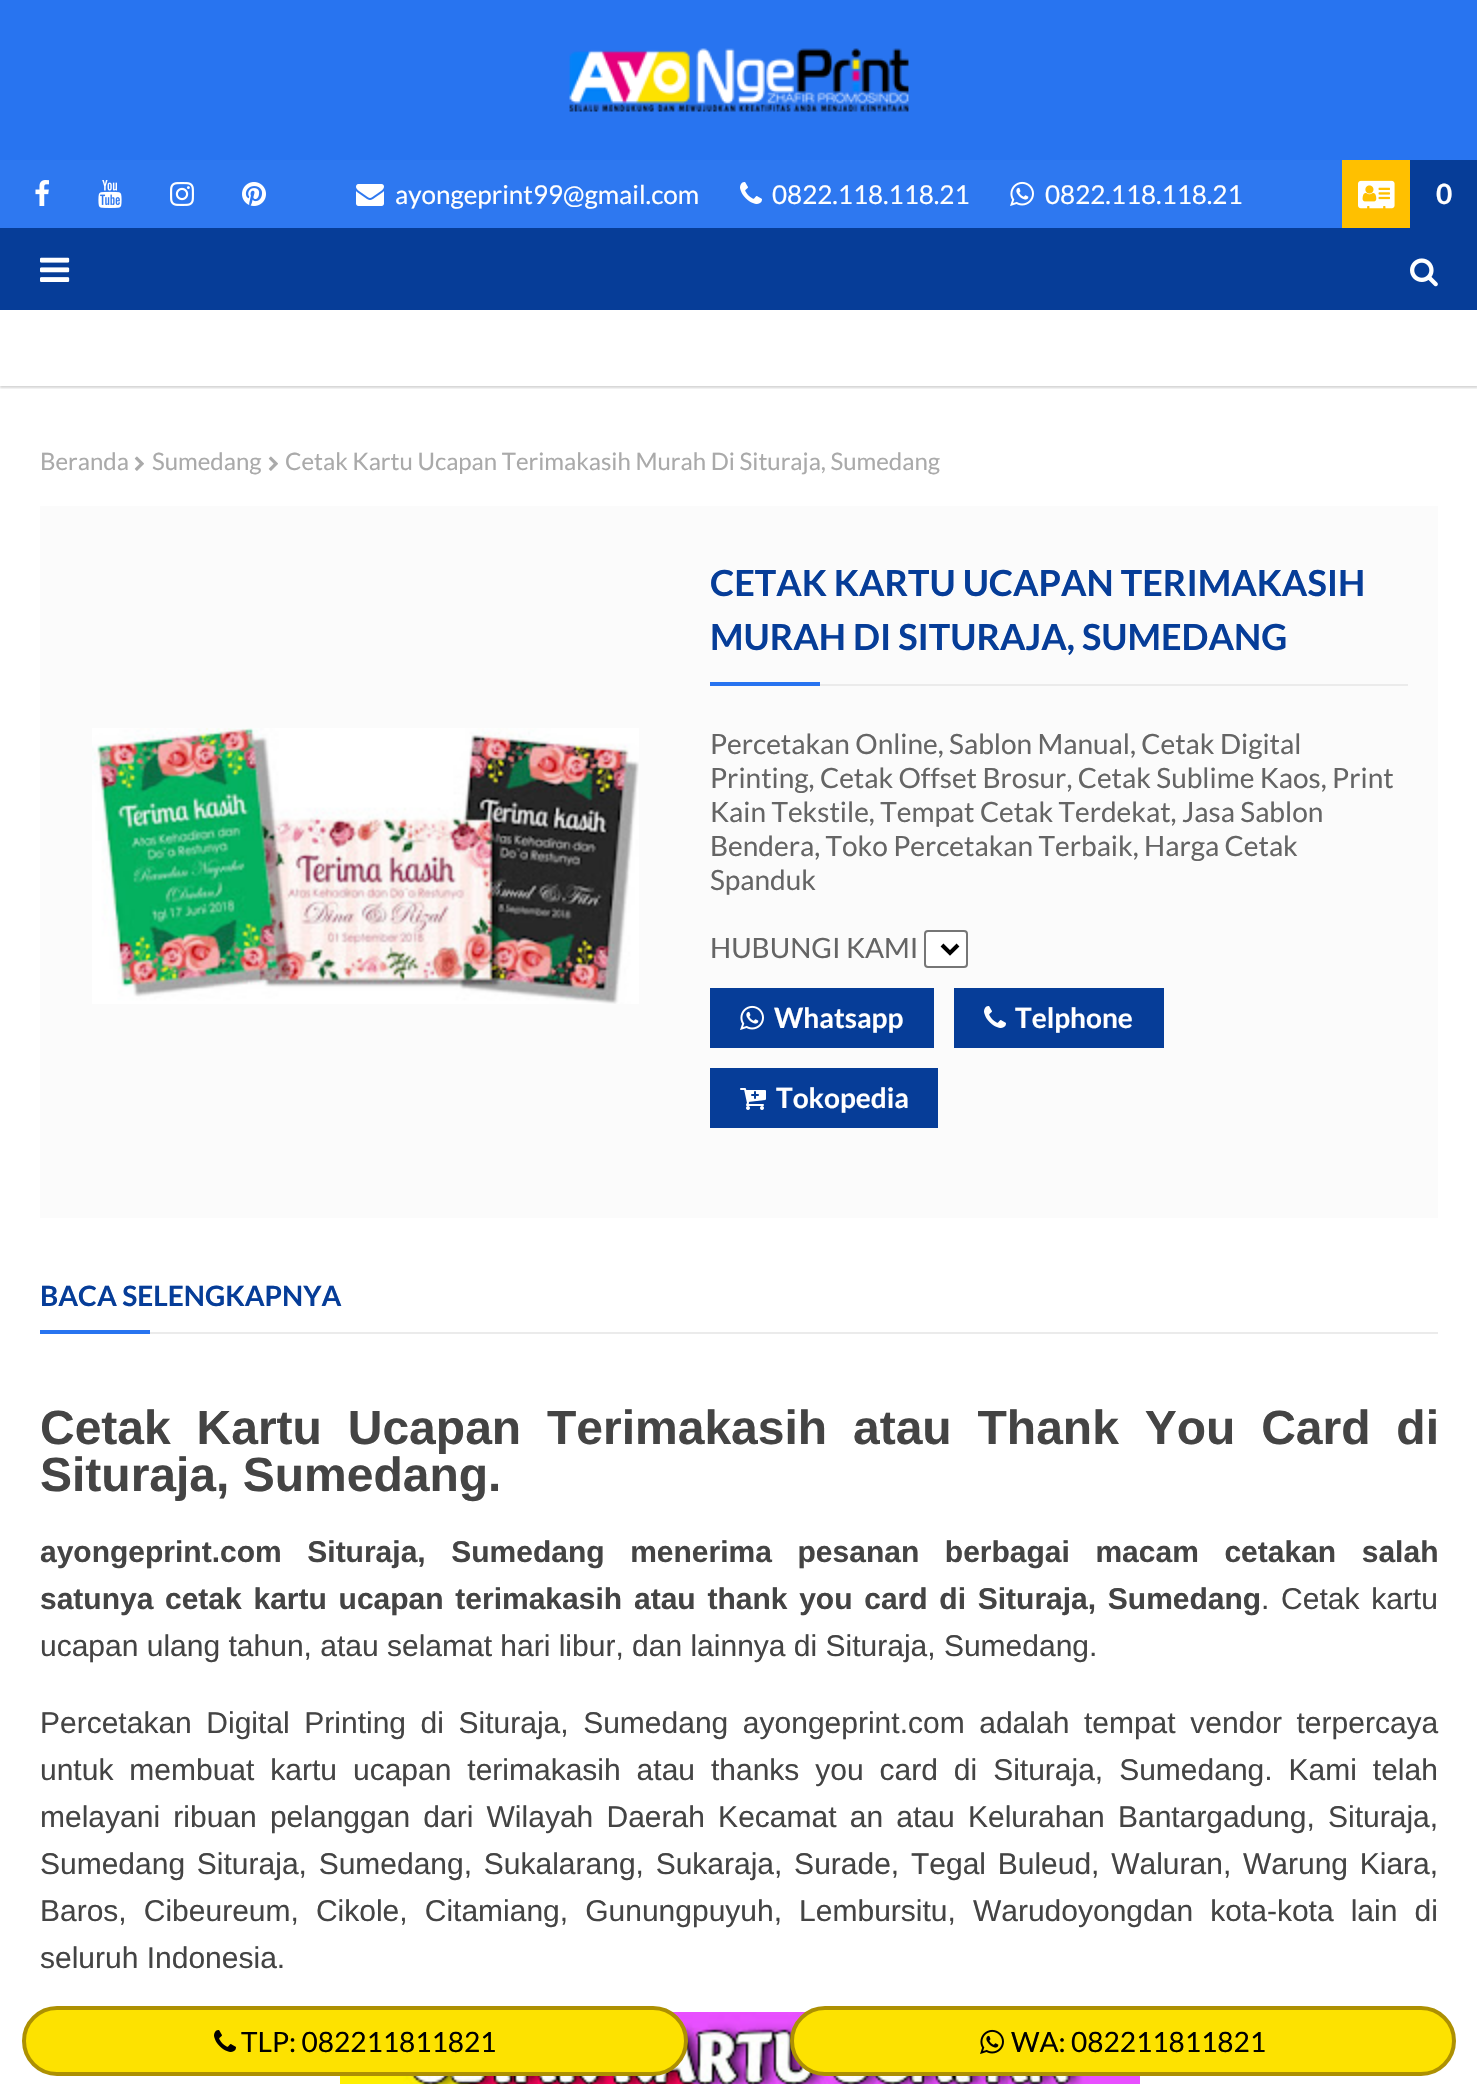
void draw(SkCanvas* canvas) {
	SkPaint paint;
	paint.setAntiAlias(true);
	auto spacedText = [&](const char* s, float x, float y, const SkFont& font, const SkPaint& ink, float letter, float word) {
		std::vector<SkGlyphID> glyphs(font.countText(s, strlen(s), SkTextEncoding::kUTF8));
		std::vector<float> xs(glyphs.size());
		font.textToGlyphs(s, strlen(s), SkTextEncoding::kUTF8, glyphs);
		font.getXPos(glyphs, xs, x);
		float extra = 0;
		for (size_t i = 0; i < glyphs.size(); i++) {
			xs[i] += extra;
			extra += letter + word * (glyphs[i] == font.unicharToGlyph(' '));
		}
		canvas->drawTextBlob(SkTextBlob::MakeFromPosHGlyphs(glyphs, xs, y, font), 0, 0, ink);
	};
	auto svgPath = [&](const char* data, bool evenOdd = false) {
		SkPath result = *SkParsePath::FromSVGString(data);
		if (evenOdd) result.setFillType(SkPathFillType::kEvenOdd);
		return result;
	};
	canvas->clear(0xffffffff);
	paint.setColor(0xff2874f0);
	canvas->drawRect(SkRect::MakeXYWH(0, 0, 1477, 160), paint);
	canvas->drawImageRect(SkImages::DeferredFromEncodedData(SkData::MakeFromFileName("img1.png")), SkRect::MakeXYWH(569, 48, 340, 64), SkSamplingOptions());
	paint.setColor(0xff2e78f0);
	canvas->drawRect(SkRect::MakeXYWH(0, 160, 1342, 68), paint);
	canvas->drawImageRect(SkImages::DeferredFromEncodedData(SkData::MakeFromFileName("img2.png")), SkRect::MakeXYWH(35, 180, 14, 26), SkSamplingOptions());
	canvas->drawImageRect(SkImages::DeferredFromEncodedData(SkData::MakeFromFileName("img3.png")), SkRect::MakeXYWH(98, 180, 24, 28), SkSamplingOptions());
	canvas->drawImageRect(SkImages::DeferredFromEncodedData(SkData::MakeFromFileName("img4.png")), SkRect::MakeXYWH(170, 182, 24, 24), SkSamplingOptions());
	canvas->drawImageRect(SkImages::DeferredFromEncodedData(SkData::MakeFromFileName("img5.png")), SkRect::MakeXYWH(242, 182, 24, 24), SkSamplingOptions());
	canvas->drawImageRect(SkImages::DeferredFromEncodedData(SkData::MakeFromFileName("img6.png")), SkRect::MakeXYWH(356, 184, 28, 22), SkSamplingOptions());
	SkFont f1(fontMgr->matchFamilyStyle("Lato", SkFontStyle::Normal()), 26);
	f1.setSubpixel(true);
	paint.setColor(0xffffffff);
	canvas->drawString("ayongeprint99@gmail.com", 395, 204, f1, paint);
	canvas->drawImageRect(SkImages::DeferredFromEncodedData(SkData::MakeFromFileName("img7.png")), SkRect::MakeXYWH(740, 182, 22, 22), SkSamplingOptions());
	canvas->drawString("0822.118.118.21", 772, 204, f1, paint);
	canvas->drawImageRect(SkImages::DeferredFromEncodedData(SkData::MakeFromFileName("img8.png")), SkRect::MakeXYWH(1010, 181, 24, 25), SkSamplingOptions());
	canvas->drawString("0822.118.118.21", 1045, 204, f1, paint);
	paint.setColor(0xffffc000);
	canvas->drawRect(SkRect::MakeXYWH(1342, 160, 68, 68), paint);
	canvas->drawImageRect(SkImages::DeferredFromEncodedData(SkData::MakeFromFileName("img9.png")), SkRect::MakeXYWH(1358, 180, 37, 29), SkSamplingOptions());
	paint.setColor(0xff063d98);
	canvas->drawRect(SkRect::MakeXYWH(1410, 160, 67, 68), paint);
	SkFont f2(fontMgr->matchFamilyStyle("Lato", SkFontStyle::Bold()), 28);
	f2.setSubpixel(true);
	paint.setColor(0xffffffff);
	canvas->drawString("0", 1436, 204, f2, paint);
	canvas->save();
	canvas->clipRect(SkRect::MakeXYWH(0, 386, 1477, 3));
	paint.setColor(0x29000000);
	paint.setMaskFilter(SkMaskFilter::MakeBlur(kNormal_SkBlurStyle, 1));
	canvas->drawRect(SkRect::MakeXYWH(0, 312, 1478, 76), paint);
	paint.setMaskFilter(nullptr);
	canvas->restore();
	paint.setColor(0xff063d98);
	canvas->drawRect(SkRect::MakeXYWH(0, 228, 1477, 82), paint);
	canvas->drawImageRect(SkImages::DeferredFromEncodedData(SkData::MakeFromFileName("img10.png")), SkRect::MakeXYWH(40, 257, 30, 25), SkSamplingOptions());
	canvas->drawImageRect(SkImages::DeferredFromEncodedData(SkData::MakeFromFileName("img11.png")), SkRect::MakeXYWH(1410, 258, 28, 29), SkSamplingOptions());
	SkFont f3(fontMgr->matchFamilyStyle("Lato", SkFontStyle::Normal()), 24);
	f3.setSubpixel(true);
	paint.setColor(0xffaaaaaa);
	canvas->drawString("Beranda", 40, 470, f3, paint);
	canvas->drawImageRect(SkImages::DeferredFromEncodedData(SkData::MakeFromFileName("img12.png")), SkRect::MakeXYWH(134, 456, 10, 15), SkSamplingOptions());
	canvas->drawString("Sumedang", 152, 470, f3, paint);
	canvas->drawImageRect(SkImages::DeferredFromEncodedData(SkData::MakeFromFileName("img12.png")), SkRect::MakeXYWH(268, 456, 10, 15), SkSamplingOptions());
	canvas->drawString("Cetak Kartu Ucapan Terimakasih Murah Di Situraja, Sumedang", 285, 470, f3, paint);
	paint.setColor(0xfffbfbfb);
	canvas->drawRect(SkRect::MakeXYWH(40, 506, 1398, 712), paint);
	canvas->drawImageRect(SkImages::DeferredFromEncodedData(SkData::MakeFromFileName("img13.png")), SkRect::MakeXYWH(92, 728, 547, 276), SkSamplingOptions());
	paint.setColor(0xffebebeb);
	canvas->drawRect(SkRect::MakeXYWH(820, 684, 588, 2), paint);
	SkFont f4(fontMgr->matchFamilyStyle("Lato", SkFontStyle::Bold()), 36);
	f4.setSubpixel(true);
	paint.setColor(0xff063d98);
	canvas->drawString("CETAK KARTU UCAPAN TERIMAKASIH", 710, 596, f4, paint);
	canvas->drawString("MURAH DI SITURAJA, SUMEDANG", 710, 650, f4, paint);
	paint.setColor(0xff2874f0);
	canvas->drawRect(SkRect::MakeXYWH(710, 682, 110, 4), paint);
	SkFont f5(fontMgr->matchFamilyStyle("Lato", SkFontStyle::Normal()), 28);
	f5.setSubpixel(true);
	paint.setColor(0xff656565);
	canvas->drawString("Percetakan Online, Sablon Manual, Cetak Digital", 710, 754, f5, paint);
	canvas->drawString("Printing, Cetak Offset Brosur, Cetak Sublime Kaos, Print", 710, 788, f5, paint);
	canvas->drawString("Kain Tekstile, Tempat Cetak Terdekat, Jasa Sablon", 710, 822, f5, paint);
	canvas->drawString("Bendera, Toko Percetakan Terbaik, Harga Cetak", 710, 856, f5, paint);
	canvas->drawString("Spanduk", 710, 890, f5, paint);
	canvas->drawString("HUBUNGI KAMI", 710, 958, f5, paint);
	paint.setColor(0xffffffff);
	canvas->drawRoundRect(SkRect::MakeXYWH(925, 931, 42, 36), 3, 3, paint);
	paint.setStroke(true);
	paint.setStrokeWidth(2);
	paint.setColor(0xff767676);
	canvas->drawRoundRect(SkRect::MakeXYWH(925, 931, 42, 36), 3, 3, paint);
	paint.setStrokeWidth(4);
	paint.setColor(0xff000000);
	canvas->drawPath(svgPath("M942 945L950 953L958 945"), paint);
	paint.setStroke(false);
	paint.setColor(0xff063d98);
	canvas->drawRect(SkRect::MakeXYWH(710, 988, 224, 60), paint);
	canvas->drawImageRect(SkImages::DeferredFromEncodedData(SkData::MakeFromFileName("img14.png")), SkRect::MakeXYWH(740, 1005, 24, 25), SkSamplingOptions());
	paint.setColor(0xffffffff);
	canvas->drawString("Whatsapp", 774, 1028, f2, paint);
	paint.setColor(0xff063d98);
	canvas->drawRect(SkRect::MakeXYWH(954, 988, 210, 60), paint);
	canvas->drawImageRect(SkImages::DeferredFromEncodedData(SkData::MakeFromFileName("img15.png")), SkRect::MakeXYWH(984, 1006, 22, 22), SkSamplingOptions());
	paint.setColor(0xffffffff);
	canvas->drawString("Telphone", 1015, 1028, f2, paint);
	paint.setColor(0xff063d98);
	canvas->drawRect(SkRect::MakeXYWH(710, 1068, 228, 60), paint);
	canvas->drawImageRect(SkImages::DeferredFromEncodedData(SkData::MakeFromFileName("img16.png")), SkRect::MakeXYWH(740, 1088, 26, 22), SkSamplingOptions());
	paint.setColor(0xffffffff);
	canvas->drawString("Tokopedia", 776, 1108, f2, paint);
	paint.setColor(0xffebebeb);
	canvas->drawRect(SkRect::MakeXYWH(150, 1332, 1288, 2), paint);
	paint.setColor(0xff063d98);
	canvas->drawString("BACA SELENGKAPNYA", 40, 1306, f2, paint);
	paint.setColor(0xff2874f0);
	canvas->drawRect(SkRect::MakeXYWH(40, 1330, 110, 4), paint);
	SkFont f6(fontMgr->matchFamilyStyle("Liberation Sans", SkFontStyle::Bold()), 48);
	f6.setSubpixel(true);
	paint.setColor(0xff444444);
	spacedText("Cetak Kartu Ucapan Terimakasih atau Thank You Card di", 40, 1444, f6, paint, 0, 12.5);
	canvas->drawString("Situraja, Sumedang.", 40, 1491, f6, paint);
	SkFont f7(fontMgr->matchFamilyStyle("Liberation Sans", SkFontStyle::Bold()), 30);
	f7.setSubpixel(true);
	spacedText("ayongeprint.com Situraja, Sumedang menerima pesanan berbagai macam cetakan salah", 40, 1562, f7, paint, 0, 17.25);
	canvas->drawString("satunya", 40, 1609, f7, paint);
	spacedText("cetak kartu ucapan terimakasih", 165, 1609, f7, paint, 0, 3.4);
	spacedText("atau thank you card di Situraja, Sumedang", 634, 1609, f7, paint, 0, 3.4);
	SkFont f8(fontMgr->matchFamilyStyle("Liberation Sans", SkFontStyle::Normal()), 30);
	f8.setSubpixel(true);
	spacedText(". Cetak kartu", 1261, 1609, f8, paint, 0, 3.4);
	canvas->drawString("ucapan ulang tahun, atau selamat hari libur, dan lainnya di Situraja, Sumedang.", 40, 1656, f8, paint);
	spacedText("Percetakan Digital Printing di Situraja, Sumedang ayongeprint.com adalah tempat vendor terpercaya", 40, 1733, f8, paint, 0, 6.25);
	spacedText("untuk membuat kartu ucapan terimakasih atau thanks you card di Situraja, Sumedang. Kami telah", 40, 1780, f8, paint, 0, 7.6);
	spacedText("melayani ribuan pelanggan dari Wilayah Daerah Kecamat an atau Kelurahan Bantargadung, Situraja,", 40, 1827, f8, paint, 0, 4.9);
	spacedText("Sumedang Situraja, Sumedang, Sukalarang, Sukaraja, Surade, Tegal Buleud, Waluran, Warung Kiara,", 40, 1874, f8, paint, 0, 3.4);
	spacedText("Baros, Cibeureum, Cikole, Citamiang, Gunungpuyuh, Lembursitu, Warudoyongdan kota-kota lain di", 40, 1921, f8, paint, 0, 8.75);
	canvas->drawString("seluruh Indonesia.", 40, 1968, f8, paint);
	canvas->drawImageRect(SkImages::DeferredFromEncodedData(SkData::MakeFromFileName("img17.png")), SkRect::MakeXYWH(340, 2012, 800, 72), SkSamplingOptions());
	paint.setColor(0xfffde200);
	canvas->drawRoundRect(SkRect::MakeXYWH(24, 2008, 662, 66), 33, 33, paint);
	paint.setStroke(true);
	paint.setColor(0xffad9002);
	canvas->drawRoundRect(SkRect::MakeXYWH(24, 2008, 662, 66), 33, 33, paint);
	canvas->drawImageRect(SkImages::DeferredFromEncodedData(SkData::MakeFromFileName("img18.png")), SkRect::MakeXYWH(214, 2030, 22, 22), SkSamplingOptions());
	paint.setStroke(false);
	paint.setColor(0xff000000);
	canvas->drawString("TLP: 082211811821", 241, 2052, f5, paint);
	paint.setColor(0xfffde200);
	canvas->drawRoundRect(SkRect::MakeXYWH(792, 2008, 662, 66), 33, 33, paint);
	paint.setStroke(true);
	paint.setColor(0xffad9002);
	canvas->drawRoundRect(SkRect::MakeXYWH(792, 2008, 662, 66), 33, 33, paint);
	canvas->drawImageRect(SkImages::DeferredFromEncodedData(SkData::MakeFromFileName("img19.png")), SkRect::MakeXYWH(980, 2029, 24, 25), SkSamplingOptions());
	paint.setStroke(false);
	paint.setColor(0xff000000);
	canvas->drawString("WA: 082211811821", 1011, 2052, f5, paint);
}
